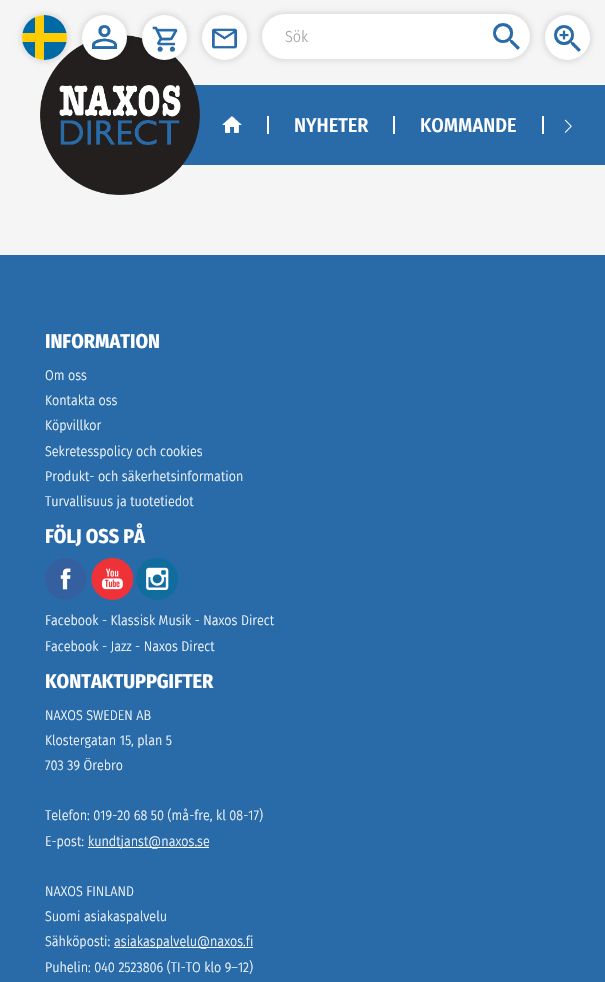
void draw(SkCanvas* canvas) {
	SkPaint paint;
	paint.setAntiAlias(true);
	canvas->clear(0xfff5f5f5);
	paint.setColor(0xff296ba9);
	canvas->drawRect(SkRect::MakeXYWH(182, 85, 423, 80), paint);
	canvas->drawImageRect(SkImages::DeferredFromEncodedData(SkData::MakeFromFileName("img7.png")), SkRect::MakeXYWH(40, 35, 160, 160), SkSamplingOptions());
	paint.setColor(0x1a000000);
	paint.setMaskFilter(SkMaskFilter::MakeBlur(kNormal_SkBlurStyle, 2.5));
	canvas->drawRoundRect(SkRect::MakeXYWH(20, 13, 49, 49), 24.5, 24.5, paint);
	paint.setMaskFilter(nullptr);
	paint.setColor(0xffffffff);
	canvas->drawCircle(44.5, 37.5, 22.5, paint);
	canvas->drawImageRect(SkImages::DeferredFromEncodedData(SkData::MakeFromFileName("img1.png")), SkRect::MakeXYWH(22, 15, 45, 45), SkSamplingOptions());
	paint.setColor(0x1a000000);
	paint.setMaskFilter(SkMaskFilter::MakeBlur(kNormal_SkBlurStyle, 2.5));
	canvas->drawRoundRect(SkRect::MakeXYWH(80, 13, 49, 49), 24.5, 24.5, paint);
	paint.setMaskFilter(nullptr);
	paint.setColor(0xffffffff);
	canvas->drawCircle(104.5, 37.5, 22.5, paint);
	canvas->drawImageRect(SkImages::DeferredFromEncodedData(SkData::MakeFromFileName("img2.png")), SkRect::MakeXYWH(92, 25, 25, 24), SkSamplingOptions());
	paint.setColor(0x1a000000);
	paint.setMaskFilter(SkMaskFilter::MakeBlur(kNormal_SkBlurStyle, 2.5));
	canvas->drawRoundRect(SkRect::MakeXYWH(140, 13, 49, 49), 24.5, 24.5, paint);
	paint.setMaskFilter(nullptr);
	paint.setColor(0xffffffff);
	canvas->drawCircle(164.5, 37.5, 22.5, paint);
	canvas->drawImageRect(SkImages::DeferredFromEncodedData(SkData::MakeFromFileName("img3.png")), SkRect::MakeXYWH(152, 26, 26, 26), SkSamplingOptions());
	paint.setColor(0x1a000000);
	paint.setMaskFilter(SkMaskFilter::MakeBlur(kNormal_SkBlurStyle, 2.5));
	canvas->drawRoundRect(SkRect::MakeXYWH(200, 13, 49, 49), 24.5, 24.5, paint);
	paint.setMaskFilter(nullptr);
	paint.setColor(0xffffffff);
	canvas->drawCircle(224.5, 37.5, 22.5, paint);
	canvas->drawImageRect(SkImages::DeferredFromEncodedData(SkData::MakeFromFileName("img4.png")), SkRect::MakeXYWH(212, 28, 26, 21), SkSamplingOptions());
	paint.setColor(0x1a000000);
	paint.setMaskFilter(SkMaskFilter::MakeBlur(kNormal_SkBlurStyle, 2.5));
	canvas->drawRoundRect(SkRect::MakeXYWH(260, 12, 272, 49), 24.5, 24.5, paint);
	paint.setMaskFilter(nullptr);
	paint.setColor(0xffffffff);
	canvas->drawRoundRect(SkRect::MakeXYWH(262, 14, 268, 45), 22.5, 22.5, paint);
	SkFont f1(fontMgr->matchFamilyStyle("Fira Sans Condensed", SkFontStyle(300, SkFontStyle::kNormal_Width, SkFontStyle::kUpright_Slant)), 16);
	f1.setSubpixel(true);
	paint.setColor(0xffa0a0a0);
	canvas->drawString("Sök", 285, 42, f1, paint);
	canvas->drawImageRect(SkImages::DeferredFromEncodedData(SkData::MakeFromFileName("img5.png")), SkRect::MakeXYWH(493, 23, 27, 27), SkSamplingOptions());
	paint.setColor(0x1a000000);
	paint.setMaskFilter(SkMaskFilter::MakeBlur(kNormal_SkBlurStyle, 2.5));
	canvas->drawRoundRect(SkRect::MakeXYWH(543, 13, 49, 49), 24.5, 24.5, paint);
	paint.setMaskFilter(nullptr);
	paint.setColor(0xffffffff);
	canvas->drawCircle(567.5, 37.5, 22.5, paint);
	canvas->drawImageRect(SkImages::DeferredFromEncodedData(SkData::MakeFromFileName("img6.png")), SkRect::MakeXYWH(554, 25, 27, 27), SkSamplingOptions());
	canvas->drawImageRect(SkImages::DeferredFromEncodedData(SkData::MakeFromFileName("img8.png")), SkRect::MakeXYWH(222, 116, 20, 17), SkSamplingOptions());
	canvas->drawRect(SkRect::MakeXYWH(267, 116, 2, 18), paint);
	SkFont f2(fontMgr->matchFamilyStyle("Fira Sans Condensed", SkFontStyle(500, SkFontStyle::kNormal_Width, SkFontStyle::kUpright_Slant)), 20);
	f2.setSubpixel(true);
	canvas->drawString("NYHETER", 294, 132, f2, paint);
	canvas->drawRect(SkRect::MakeXYWH(393, 116, 2, 18), paint);
	canvas->drawString("KOMMANDE", 420, 132, f2, paint);
	canvas->drawRect(SkRect::MakeXYWH(542, 116, 2, 18), paint);
	canvas->drawImageRect(SkImages::DeferredFromEncodedData(SkData::MakeFromFileName("img9.png")), SkRect::MakeXYWH(564, 119, 8, 14), SkSamplingOptions());
	paint.setColor(0xff296ba9);
	canvas->drawRect(SkRect::MakeXYWH(0, 255, 605, 727), paint);
	SkFont f3(fontMgr->matchFamilyStyle("Fira Sans Condensed", SkFontStyle::Bold()), 20);
	f3.setSubpixel(true);
	paint.setColor(0xffffffff);
	canvas->drawString("INFORMATION", 45, 348, f3, paint);
	SkFont f4(fontMgr->matchFamilyStyle("Fira Sans Condensed", SkFontStyle(300, SkFontStyle::kNormal_Width, SkFontStyle::kUpright_Slant)), 14);
	f4.setSubpixel(true);
	canvas->drawString("Om oss", 45, 380, f4, paint);
	canvas->drawString("Kontakta oss", 45, 405, f4, paint);
	canvas->drawString("Köpvillkor", 45, 430, f4, paint);
	canvas->drawString("Sekretesspolicy och cookies", 45, 456, f4, paint);
	canvas->drawString("Produkt- och säkerhetsinformation", 45, 481, f4, paint);
	canvas->drawString("Turvallisuus ja tuotetiedot", 45, 506, f4, paint);
	canvas->drawString("FÖLJ OSS PÅ", 45, 543, f3, paint);
	canvas->drawImageRect(SkImages::DeferredFromEncodedData(SkData::MakeFromFileName("img10.png")), SkRect::MakeXYWH(45, 558, 42, 42), SkSamplingOptions());
	canvas->drawImageRect(SkImages::DeferredFromEncodedData(SkData::MakeFromFileName("img11.png")), SkRect::MakeXYWH(91, 558, 42, 42), SkSamplingOptions());
	canvas->drawImageRect(SkImages::DeferredFromEncodedData(SkData::MakeFromFileName("img12.png")), SkRect::MakeXYWH(136, 558, 42, 42), SkSamplingOptions());
	canvas->drawString("Facebook - Klassisk Musik - Naxos Direct", 45, 625, f4, paint);
	canvas->drawString("Facebook - Jazz - Naxos Direct", 45, 651, f4, paint);
	canvas->drawString("KONTAKTUPPGIFTER", 45, 688, f3, paint);
	canvas->drawString("NAXOS SWEDEN AB", 45, 720, f4, paint);
	canvas->drawString("Klostergatan 15, plan 5", 45, 745, f4, paint);
	canvas->drawString("703 39 Örebro", 45, 770, f4, paint);
	canvas->drawString("Telefon: 019-20 68 50 (må-fre, kl 08-17)", 45, 820, f4, paint);
	canvas->drawString("E-post:", 45, 846, f4, paint);
	canvas->drawRect(SkRect::MakeXYWH(88, 847, 121, 1), paint);
	canvas->drawString("kundtjanst@naxos.se", 88, 846, f4, paint);
	canvas->drawString("NAXOS FINLAND", 45, 896, f4, paint);
	canvas->drawString("Suomi asiakaspalvelu", 45, 921, f4, paint);
	canvas->drawString("Sähköposti:", 45, 946, f4, paint);
	canvas->drawRect(SkRect::MakeXYWH(114, 947, 139, 1), paint);
	canvas->drawString("asiakaspalvelu@naxos.fi", 114, 946, f4, paint);
	canvas->drawString("Puhelin: 040 2523806 (TI-TO klo 9–12)", 45, 972, f4, paint);
}
